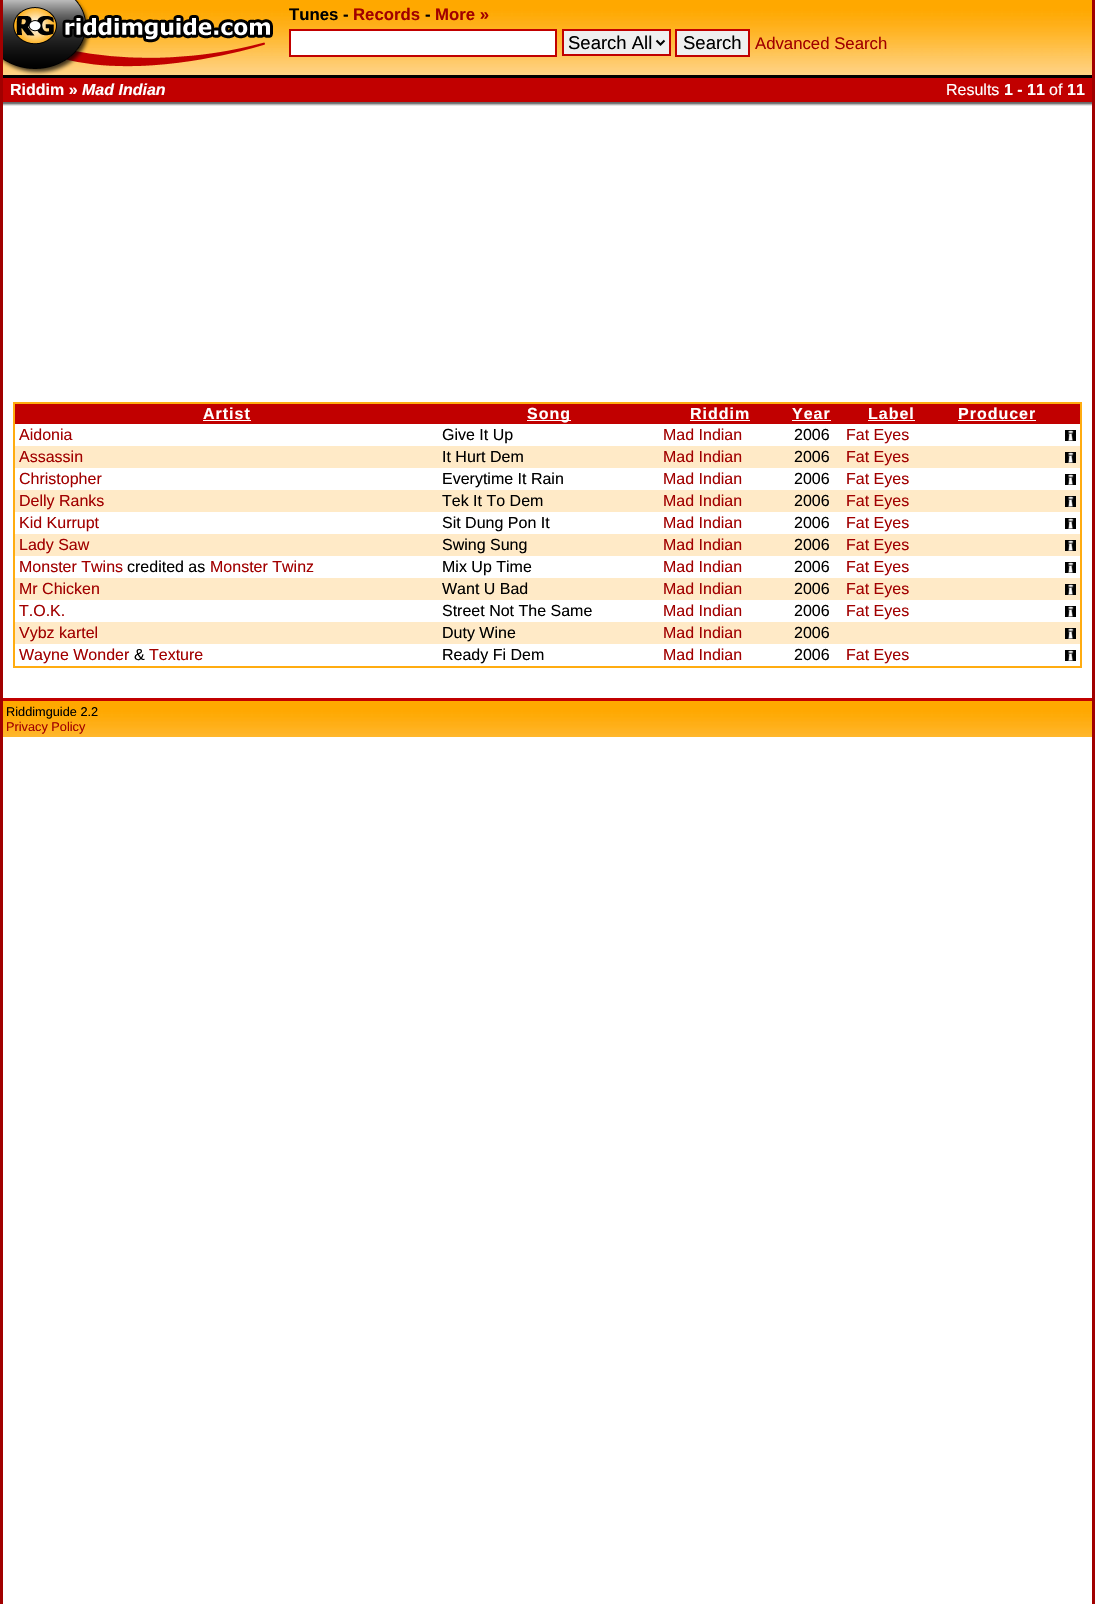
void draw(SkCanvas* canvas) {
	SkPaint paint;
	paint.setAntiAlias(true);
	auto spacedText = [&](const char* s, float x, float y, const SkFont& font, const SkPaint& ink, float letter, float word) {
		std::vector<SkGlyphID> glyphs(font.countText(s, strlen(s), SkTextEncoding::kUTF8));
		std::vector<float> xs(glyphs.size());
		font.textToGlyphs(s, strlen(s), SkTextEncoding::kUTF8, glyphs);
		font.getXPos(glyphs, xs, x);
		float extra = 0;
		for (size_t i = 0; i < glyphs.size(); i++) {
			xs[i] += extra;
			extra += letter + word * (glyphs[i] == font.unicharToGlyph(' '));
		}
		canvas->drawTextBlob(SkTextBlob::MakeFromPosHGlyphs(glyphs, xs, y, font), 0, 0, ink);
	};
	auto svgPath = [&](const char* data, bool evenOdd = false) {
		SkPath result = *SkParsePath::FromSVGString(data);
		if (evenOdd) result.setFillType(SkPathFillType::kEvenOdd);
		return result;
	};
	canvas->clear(0xffffffff);
	paint.setColor(0xffa10000);
	canvas->drawRect(SkRect::MakeXYWH(1092, 0, 3, 1604), paint);
	canvas->drawRect(SkRect::MakeXYWH(0, 0, 3, 1604), paint);
	canvas->drawImageRect(SkImages::DeferredFromEncodedData(SkData::MakeFromFileName("img1.png")), SkRect::MakeXYWH(3, 0, 1089, 75), SkSamplingOptions());
	canvas->drawImageRect(SkImages::DeferredFromEncodedData(SkData::MakeFromFileName("img2.png")), SkRect::MakeXYWH(3, 0, 270, 75), SkSamplingOptions());
	SkFont f1(fontMgr->matchFamilyStyle("Liberation Sans", SkFontStyle::Bold()), 16.75);
	f1.setSubpixel(true);
	paint.setColor(0xff000000);
	canvas->drawString("Tunes -", 289, 20, f1, paint);
	paint.setColor(0xffa10000);
	canvas->drawString("Records", 353, 20, f1, paint);
	paint.setColor(0xff000000);
	canvas->drawString("-", 425, 20, f1, paint);
	paint.setColor(0xffa10000);
	canvas->drawString("More »", 435, 20, f1, paint);
	paint.setColor(0xffffffff);
	canvas->drawRect(SkRect::MakeXYWH(290, 30, 266, 26), paint);
	paint.setStroke(true);
	paint.setStrokeWidth(2);
	paint.setColor(0xffc10000);
	canvas->drawRect(SkRect::MakeXYWH(290, 30, 266, 26), paint);
	paint.setStroke(false);
	paint.setColor(0xffefefef);
	canvas->drawRect(SkRect::MakeXYWH(563, 30, 107, 25), paint);
	paint.setStroke(true);
	paint.setColor(0xffc10000);
	canvas->drawRect(SkRect::MakeXYWH(563, 30, 107, 25), paint);
	paint.setColor(0xff000000);
	canvas->drawPath(svgPath("M656.5 40.5L660.5 44.5L664.5 40.5"), paint);
	SkFont f2(fontMgr->matchFamilyStyle("Liberation Sans", SkFontStyle::Normal()), 18.5);
	f2.setSubpixel(true);
	paint.setStroke(false);
	canvas->drawString("Search All", 568, 49, f2, paint);
	paint.setColor(0xffefefef);
	canvas->drawRect(SkRect::MakeXYWH(676, 30, 73, 26), paint);
	paint.setStroke(true);
	paint.setColor(0xffc10000);
	canvas->drawRect(SkRect::MakeXYWH(676, 30, 73, 26), paint);
	paint.setStroke(false);
	paint.setColor(0xff000000);
	canvas->drawString("Search", 683, 49, f2, paint);
	SkFont f3(fontMgr->matchFamilyStyle("Liberation Sans", SkFontStyle::Normal()), 16.75);
	f3.setSubpixel(true);
	paint.setColor(0xffa10000);
	canvas->drawString("Advanced Search", 755, 49, f3, paint);
	paint.setColor(0xffc10000);
	canvas->drawRect(SkRect::MakeXYWH(3, 78, 1089, 24), paint);
	paint.setColor(0xff000000);
	canvas->drawRect(SkRect::MakeXYWH(3, 75, 1089, 3), paint);
	SkFont f4(fontMgr->matchFamilyStyle("Liberation Sans", SkFontStyle::Bold()), 16);
	f4.setSubpixel(true);
	paint.setColor(0xffffffff);
	canvas->drawString("Riddim »", 10, 95, f4, paint);
	SkFont f5(fontMgr->matchFamilyStyle("Liberation Sans", SkFontStyle::BoldItalic()), 16);
	f5.setSubpixel(true);
	canvas->drawString("Mad Indian", 82, 95, f5, paint);
	SkFont f6(fontMgr->matchFamilyStyle("Liberation Sans", SkFontStyle::Normal()), 16);
	f6.setSubpixel(true);
	canvas->drawString("Results", 946, 95, f6, paint);
	canvas->drawString("1 - 11", 1004, 95, f4, paint);
	canvas->drawString("of", 1049, 95, f6, paint);
	canvas->drawString("11", 1067, 95, f4, paint);
	canvas->drawImageRect(SkImages::DeferredFromEncodedData(SkData::MakeFromFileName("img3.png")), SkRect::MakeXYWH(3, 102, 1089, 4), SkSamplingOptions());
	paint.setStroke(true);
	paint.setColor(0xffffac10);
	canvas->drawRect(SkRect::MakeXYWH(14, 403, 1067, 264), paint);
	paint.setStroke(false);
	paint.setColor(0xffc10000);
	canvas->drawRect(SkRect::MakeXYWH(15, 404, 1065, 20), paint);
	paint.setColor(0xffffffff);
	spacedText("Artist", 203, 419, f4, paint, 1, 0);
	canvas->drawRect(SkRect::MakeXYWH(203, 420, 48, 1), paint);
	canvas->drawRect(SkRect::MakeXYWH(527, 420, 44, 1), paint);
	spacedText("Song", 527, 419, f4, paint, 1, 0);
	spacedText("Riddim", 690, 419, f4, paint, 1, 0);
	canvas->drawRect(SkRect::MakeXYWH(690, 420, 60, 1), paint);
	spacedText("Year", 792, 419, f4, paint, 1, 0);
	canvas->drawRect(SkRect::MakeXYWH(792, 420, 39, 1), paint);
	spacedText("Label", 868, 419, f4, paint, 1, 0);
	canvas->drawRect(SkRect::MakeXYWH(868, 420, 47, 1), paint);
	spacedText("Producer", 958, 419, f4, paint, 1, 0);
	canvas->drawRect(SkRect::MakeXYWH(958, 420, 78, 1), paint);
	paint.setColor(0xffa10000);
	canvas->drawString("Aidonia", 19, 440, f6, paint);
	paint.setColor(0xff000000);
	canvas->drawString("Give It Up", 442, 440, f6, paint);
	paint.setColor(0xffa10000);
	canvas->drawString("Mad Indian", 663, 440, f6, paint);
	paint.setColor(0xff000000);
	canvas->drawString("2006", 794, 440, f6, paint);
	paint.setColor(0xffa10000);
	canvas->drawString("Fat Eyes", 846, 440, f6, paint);
	canvas->drawImageRect(SkImages::DeferredFromEncodedData(SkData::MakeFromFileName("img4.png")), SkRect::MakeXYWH(1065, 430, 11, 11), SkSamplingOptions());
	paint.setColor(0xffffeac7);
	canvas->drawRect(SkRect::MakeXYWH(15, 446, 1065, 22), paint);
	paint.setColor(0xffa10000);
	canvas->drawString("Assassin", 19, 462, f6, paint);
	paint.setColor(0xff000000);
	canvas->drawString("It Hurt Dem", 442, 462, f6, paint);
	paint.setColor(0xffa10000);
	canvas->drawString("Mad Indian", 663, 462, f6, paint);
	paint.setColor(0xff000000);
	canvas->drawString("2006", 794, 462, f6, paint);
	paint.setColor(0xffa10000);
	canvas->drawString("Fat Eyes", 846, 462, f6, paint);
	canvas->drawImageRect(SkImages::DeferredFromEncodedData(SkData::MakeFromFileName("img4.png")), SkRect::MakeXYWH(1065, 452, 11, 11), SkSamplingOptions());
	canvas->drawString("Christopher", 19, 484, f6, paint);
	paint.setColor(0xff000000);
	canvas->drawString("Everytime It Rain", 442, 484, f6, paint);
	paint.setColor(0xffa10000);
	canvas->drawString("Mad Indian", 663, 484, f6, paint);
	paint.setColor(0xff000000);
	canvas->drawString("2006", 794, 484, f6, paint);
	paint.setColor(0xffa10000);
	canvas->drawString("Fat Eyes", 846, 484, f6, paint);
	canvas->drawImageRect(SkImages::DeferredFromEncodedData(SkData::MakeFromFileName("img4.png")), SkRect::MakeXYWH(1065, 474, 11, 11), SkSamplingOptions());
	paint.setColor(0xffffeac7);
	canvas->drawRect(SkRect::MakeXYWH(15, 490, 1065, 22), paint);
	paint.setColor(0xffa10000);
	canvas->drawString("Delly Ranks", 19, 506, f6, paint);
	paint.setColor(0xff000000);
	canvas->drawString("Tek It To Dem", 442, 506, f6, paint);
	paint.setColor(0xffa10000);
	canvas->drawString("Mad Indian", 663, 506, f6, paint);
	paint.setColor(0xff000000);
	canvas->drawString("2006", 794, 506, f6, paint);
	paint.setColor(0xffa10000);
	canvas->drawString("Fat Eyes", 846, 506, f6, paint);
	canvas->drawImageRect(SkImages::DeferredFromEncodedData(SkData::MakeFromFileName("img4.png")), SkRect::MakeXYWH(1065, 496, 11, 11), SkSamplingOptions());
	canvas->drawString("Kid Kurrupt", 19, 528, f6, paint);
	paint.setColor(0xff000000);
	canvas->drawString("Sit Dung Pon It", 442, 528, f6, paint);
	paint.setColor(0xffa10000);
	canvas->drawString("Mad Indian", 663, 528, f6, paint);
	paint.setColor(0xff000000);
	canvas->drawString("2006", 794, 528, f6, paint);
	paint.setColor(0xffa10000);
	canvas->drawString("Fat Eyes", 846, 528, f6, paint);
	canvas->drawImageRect(SkImages::DeferredFromEncodedData(SkData::MakeFromFileName("img4.png")), SkRect::MakeXYWH(1065, 518, 11, 11), SkSamplingOptions());
	paint.setColor(0xffffeac7);
	canvas->drawRect(SkRect::MakeXYWH(15, 534, 1065, 22), paint);
	paint.setColor(0xffa10000);
	canvas->drawString("Lady Saw", 19, 550, f6, paint);
	paint.setColor(0xff000000);
	canvas->drawString("Swing Sung", 442, 550, f6, paint);
	paint.setColor(0xffa10000);
	canvas->drawString("Mad Indian", 663, 550, f6, paint);
	paint.setColor(0xff000000);
	canvas->drawString("2006", 794, 550, f6, paint);
	paint.setColor(0xffa10000);
	canvas->drawString("Fat Eyes", 846, 550, f6, paint);
	canvas->drawImageRect(SkImages::DeferredFromEncodedData(SkData::MakeFromFileName("img4.png")), SkRect::MakeXYWH(1065, 540, 11, 11), SkSamplingOptions());
	canvas->drawString("Monster Twins", 19, 572, f6, paint);
	paint.setColor(0xff000000);
	canvas->drawString("credited as", 127, 572, f6, paint);
	paint.setColor(0xffa10000);
	canvas->drawString("Monster Twinz", 210, 572, f6, paint);
	paint.setColor(0xff000000);
	canvas->drawString("Mix Up Time", 442, 572, f6, paint);
	paint.setColor(0xffa10000);
	canvas->drawString("Mad Indian", 663, 572, f6, paint);
	paint.setColor(0xff000000);
	canvas->drawString("2006", 794, 572, f6, paint);
	paint.setColor(0xffa10000);
	canvas->drawString("Fat Eyes", 846, 572, f6, paint);
	canvas->drawImageRect(SkImages::DeferredFromEncodedData(SkData::MakeFromFileName("img4.png")), SkRect::MakeXYWH(1065, 562, 11, 11), SkSamplingOptions());
	paint.setColor(0xffffeac7);
	canvas->drawRect(SkRect::MakeXYWH(15, 578, 1065, 22), paint);
	paint.setColor(0xffa10000);
	canvas->drawString("Mr Chicken", 19, 594, f6, paint);
	paint.setColor(0xff000000);
	canvas->drawString("Want U Bad", 442, 594, f6, paint);
	paint.setColor(0xffa10000);
	canvas->drawString("Mad Indian", 663, 594, f6, paint);
	paint.setColor(0xff000000);
	canvas->drawString("2006", 794, 594, f6, paint);
	paint.setColor(0xffa10000);
	canvas->drawString("Fat Eyes", 846, 594, f6, paint);
	canvas->drawImageRect(SkImages::DeferredFromEncodedData(SkData::MakeFromFileName("img4.png")), SkRect::MakeXYWH(1065, 584, 11, 11), SkSamplingOptions());
	canvas->drawString("T.O.K.", 19, 616, f6, paint);
	paint.setColor(0xff000000);
	canvas->drawString("Street Not The Same", 442, 616, f6, paint);
	paint.setColor(0xffa10000);
	canvas->drawString("Mad Indian", 663, 616, f6, paint);
	paint.setColor(0xff000000);
	canvas->drawString("2006", 794, 616, f6, paint);
	paint.setColor(0xffa10000);
	canvas->drawString("Fat Eyes", 846, 616, f6, paint);
	canvas->drawImageRect(SkImages::DeferredFromEncodedData(SkData::MakeFromFileName("img4.png")), SkRect::MakeXYWH(1065, 606, 11, 11), SkSamplingOptions());
	paint.setColor(0xffffeac7);
	canvas->drawRect(SkRect::MakeXYWH(15, 622, 1065, 22), paint);
	paint.setColor(0xffa10000);
	canvas->drawString("Vybz kartel", 19, 638, f6, paint);
	paint.setColor(0xff000000);
	canvas->drawString("Duty Wine", 442, 638, f6, paint);
	paint.setColor(0xffa10000);
	canvas->drawString("Mad Indian", 663, 638, f6, paint);
	paint.setColor(0xff000000);
	canvas->drawString("2006", 794, 638, f6, paint);
	canvas->drawImageRect(SkImages::DeferredFromEncodedData(SkData::MakeFromFileName("img4.png")), SkRect::MakeXYWH(1065, 628, 11, 11), SkSamplingOptions());
	paint.setColor(0xffa10000);
	canvas->drawString("Wayne Wonder", 19, 660, f6, paint);
	paint.setColor(0xff000000);
	canvas->drawString("&", 134, 660, f6, paint);
	paint.setColor(0xffa10000);
	canvas->drawString("Texture", 149, 660, f6, paint);
	paint.setColor(0xff000000);
	canvas->drawString("Ready Fi Dem", 442, 660, f6, paint);
	paint.setColor(0xffa10000);
	canvas->drawString("Mad Indian", 663, 660, f6, paint);
	paint.setColor(0xff000000);
	canvas->drawString("2006", 794, 660, f6, paint);
	paint.setColor(0xffa10000);
	canvas->drawString("Fat Eyes", 846, 660, f6, paint);
	canvas->drawImageRect(SkImages::DeferredFromEncodedData(SkData::MakeFromFileName("img4.png")), SkRect::MakeXYWH(1065, 650, 11, 11), SkSamplingOptions());
	canvas->drawImageRect(SkImages::DeferredFromEncodedData(SkData::MakeFromFileName("img5.png")), SkRect::MakeXYWH(3, 701, 1089, 36), SkSamplingOptions());
	paint.setColor(0xffc10000);
	canvas->drawRect(SkRect::MakeXYWH(3, 698, 1089, 3), paint);
	SkFont f7(fontMgr->matchFamilyStyle("Liberation Sans", SkFontStyle::Normal()), 12.75);
	f7.setSubpixel(true);
	paint.setColor(0xff000000);
	canvas->drawString("Riddimguide 2.2", 6, 716, f7, paint);
	paint.setColor(0xffa10000);
	canvas->drawString("Privacy Policy", 6, 731, f7, paint);
}
